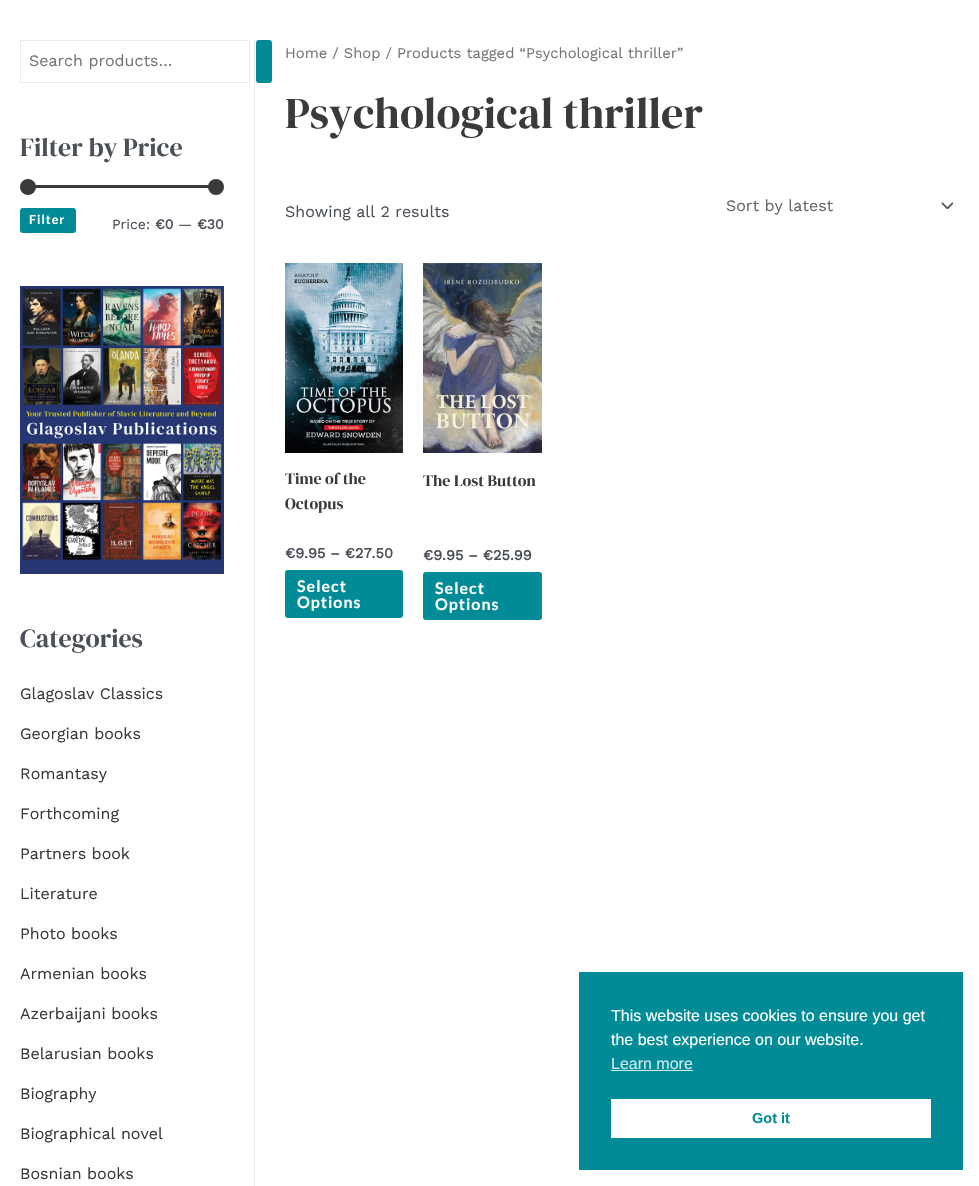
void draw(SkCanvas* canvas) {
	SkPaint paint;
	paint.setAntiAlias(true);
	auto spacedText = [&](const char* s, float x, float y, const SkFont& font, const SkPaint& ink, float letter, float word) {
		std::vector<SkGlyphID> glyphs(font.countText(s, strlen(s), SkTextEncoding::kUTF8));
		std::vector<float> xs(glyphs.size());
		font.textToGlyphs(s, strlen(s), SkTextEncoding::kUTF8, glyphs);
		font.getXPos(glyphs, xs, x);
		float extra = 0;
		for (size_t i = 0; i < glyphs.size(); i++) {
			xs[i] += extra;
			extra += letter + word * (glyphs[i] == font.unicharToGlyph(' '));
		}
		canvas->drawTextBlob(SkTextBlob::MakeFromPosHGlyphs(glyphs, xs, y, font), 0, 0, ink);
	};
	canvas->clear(0xffffffff);
	paint.setColor(0xffebebeb);
	canvas->drawRect(SkRect::MakeXYWH(254, 40, 1, 1146), paint);
	paint.setStroke(true);
	paint.setStrokeWidth(1);
	canvas->drawRect(SkRect::MakeXYWH(20.5, 40.5, 229, 42), paint);
	SkFont f1(fontMgr->matchFamilyStyle("Work Sans", SkFontStyle::Normal()), 16);
	f1.setSubpixel(true);
	paint.setStroke(false);
	paint.setColor(0xff757575);
	canvas->drawString("Search products…", 29, 66, f1, paint);
	paint.setColor(0xff008b96);
	canvas->drawRoundRect(SkRect::MakeXYWH(256, 40, 16, 43), 3, 3, paint);
	SkFont f2(fontMgr->matchFamilyStyle("DM Serif Display", SkFontStyle::Normal()), 26);
	f2.setSubpixel(true);
	paint.setColor(0xff4b4f58);
	canvas->drawString("Filter by Price", 20, 156, f2, paint);
	paint.setColor(0xff3a3a3a);
	canvas->drawRect(SkRect::MakeXYWH(28, 185, 188, 3), paint);
	canvas->drawCircle(28, 187, 8, paint);
	canvas->drawCircle(216, 187, 8, paint);
	paint.setColor(0xff008b96);
	canvas->drawRoundRect(SkRect::MakeXYWH(20, 208, 56, 25), 3, 3, paint);
	SkFont f3(fontMgr->matchFamilyStyle("Lato", SkFontStyle::Bold()), 12.5);
	f3.setSubpixel(true);
	paint.setColor(0xffffffff);
	spacedText("Filter", 29, 224, f3, paint, 1, 0);
	SkFont f4(fontMgr->matchFamilyStyle("Work Sans", SkFontStyle::Normal()), 14);
	f4.setSubpixel(true);
	paint.setColor(0xff4b4f58);
	canvas->drawString("Price:", 112, 229, f4, paint);
	SkFont f5(fontMgr->matchFamilyStyle("Work Sans", SkFontStyle::Bold()), 14);
	f5.setSubpixel(true);
	canvas->drawString("€0", 155, 229, f5, paint);
	canvas->drawString("—", 178, 229, f4, paint);
	canvas->drawString("€30", 197, 229, f5, paint);
	canvas->drawImageRect(SkImages::DeferredFromEncodedData(SkData::MakeFromFileName("img1.png")), SkRect::MakeXYWH(20, 286, 204, 288), SkSamplingOptions());
	canvas->drawString("Categories", 20, 647, f2, paint);
	paint.setColor(0xff3a3a3a);
	canvas->drawString("Glagoslav Classics", 20, 699, f1, paint);
	canvas->drawString("Georgian books", 20, 739, f1, paint);
	canvas->drawString("Romantasy", 20, 779, f1, paint);
	canvas->drawString("Forthcoming", 20, 819, f1, paint);
	canvas->drawString("Partners book", 20, 859, f1, paint);
	canvas->drawString("Literature", 20, 899, f1, paint);
	canvas->drawString("Photo books", 20, 939, f1, paint);
	canvas->drawString("Armenian books", 20, 979, f1, paint);
	canvas->drawString("Azerbaijani books", 20, 1019, f1, paint);
	canvas->drawString("Belarusian books", 20, 1059, f1, paint);
	canvas->drawString("Biography", 20, 1099, f1, paint);
	canvas->drawString("Biographical novel", 20, 1139, f1, paint);
	canvas->drawString("Bosnian books", 20, 1179, f1, paint);
	SkFont f6(fontMgr->matchFamilyStyle("Work Sans", SkFontStyle::Normal()), 14.75);
	f6.setSubpixel(true);
	paint.setColor(0xff757575);
	canvas->drawString("Home / Shop / Products tagged “Psychological thriller”", 285, 58, f6, paint);
	SkFont f7(fontMgr->matchFamilyStyle("DM Serif Display", SkFontStyle::Normal()), 44);
	f7.setSubpixel(true);
	paint.setColor(0xff3a3a3a);
	canvas->drawString("Psychological thriller", 285, 128, f7, paint);
	paint.setColor(0xff4b4f58);
	canvas->drawString("Showing all 2 results", 285, 217, f1, paint);
	canvas->drawImageRect(SkImages::DeferredFromEncodedData(SkData::MakeFromFileName("img2.png")), SkRect::MakeXYWH(941, 202, 12, 7), SkSamplingOptions());
	paint.setColor(0xff666666);
	canvas->drawString("Sort by latest", 726, 211, f1, paint);
	canvas->drawImageRect(SkImages::DeferredFromEncodedData(SkData::MakeFromFileName("img3.png")), SkRect::MakeXYWH(285, 263, 118, 190), SkSamplingOptions());
	SkFont f8(fontMgr->matchFamilyStyle("DM Serif Display", SkFontStyle::Normal()), 16);
	f8.setSubpixel(true);
	paint.setColor(0xff3a3a3a);
	canvas->drawString("Time of the", 285, 484, f8, paint);
	canvas->drawString("Octopus", 285, 509, f8, paint);
	SkFont f9(fontMgr->matchFamilyStyle("Work Sans", SkFontStyle::Bold()), 14.5);
	f9.setSubpixel(true);
	paint.setColor(0xff4b4f58);
	canvas->drawString("€9.95 – €27.50", 285, 558, f9, paint);
	paint.setColor(0xff008b96);
	canvas->drawRoundRect(SkRect::MakeXYWH(285, 570, 118, 48), 3, 3, paint);
	SkFont f10(fontMgr->matchFamilyStyle("Lato", SkFontStyle::Bold()), 16);
	f10.setSubpixel(true);
	paint.setColor(0xffffffff);
	spacedText("Select", 297, 592, f10, paint, 1, 0);
	spacedText("Options", 297, 608, f10, paint, 1, 0);
	canvas->drawImageRect(SkImages::DeferredFromEncodedData(SkData::MakeFromFileName("img4.png")), SkRect::MakeXYWH(423, 263, 119, 190), SkSamplingOptions());
	paint.setColor(0xff3a3a3a);
	canvas->drawString("The Lost Button", 423, 486, f8, paint);
	paint.setColor(0xff4b4f58);
	canvas->drawString("€9.95 – €25.99", 423, 560, f9, paint);
	paint.setColor(0xff008b96);
	canvas->drawRoundRect(SkRect::MakeXYWH(423, 572, 119, 48), 3, 3, paint);
	paint.setColor(0xffffffff);
	spacedText("Select", 435, 594, f10, paint, 1, 0);
	spacedText("Options", 435, 610, f10, paint, 1, 0);
	paint.setColor(0xff008b96);
	canvas->drawRect(SkRect::MakeXYWH(579, 972, 384, 198), paint);
	SkFont f11(fontMgr->matchFamilyStyle("Liberation Sans", SkFontStyle::Normal()), 16);
	f11.setSubpixel(true);
	paint.setColor(0xffffffff);
	canvas->drawString("This website uses cookies to ensure you get", 611, 1021, f11, paint);
	canvas->drawString("the best experience on our website.", 611, 1045, f11, paint);
	paint.setColor(0xffcce8ea);
	canvas->drawString("Learn more", 611, 1069, f11, paint);
	canvas->drawRect(SkRect::MakeXYWH(611, 1070, 82, 1), paint);
	paint.setColor(0xffffffff);
	canvas->drawRect(SkRect::MakeXYWH(611, 1099, 320, 39), paint);
	SkFont f12(fontMgr->matchFamilyStyle("Liberation Sans", SkFontStyle::Bold()), 14.5);
	f12.setSubpixel(true);
	paint.setColor(0xff008b96);
	canvas->drawString("Got it", 752, 1123, f12, paint);
}
